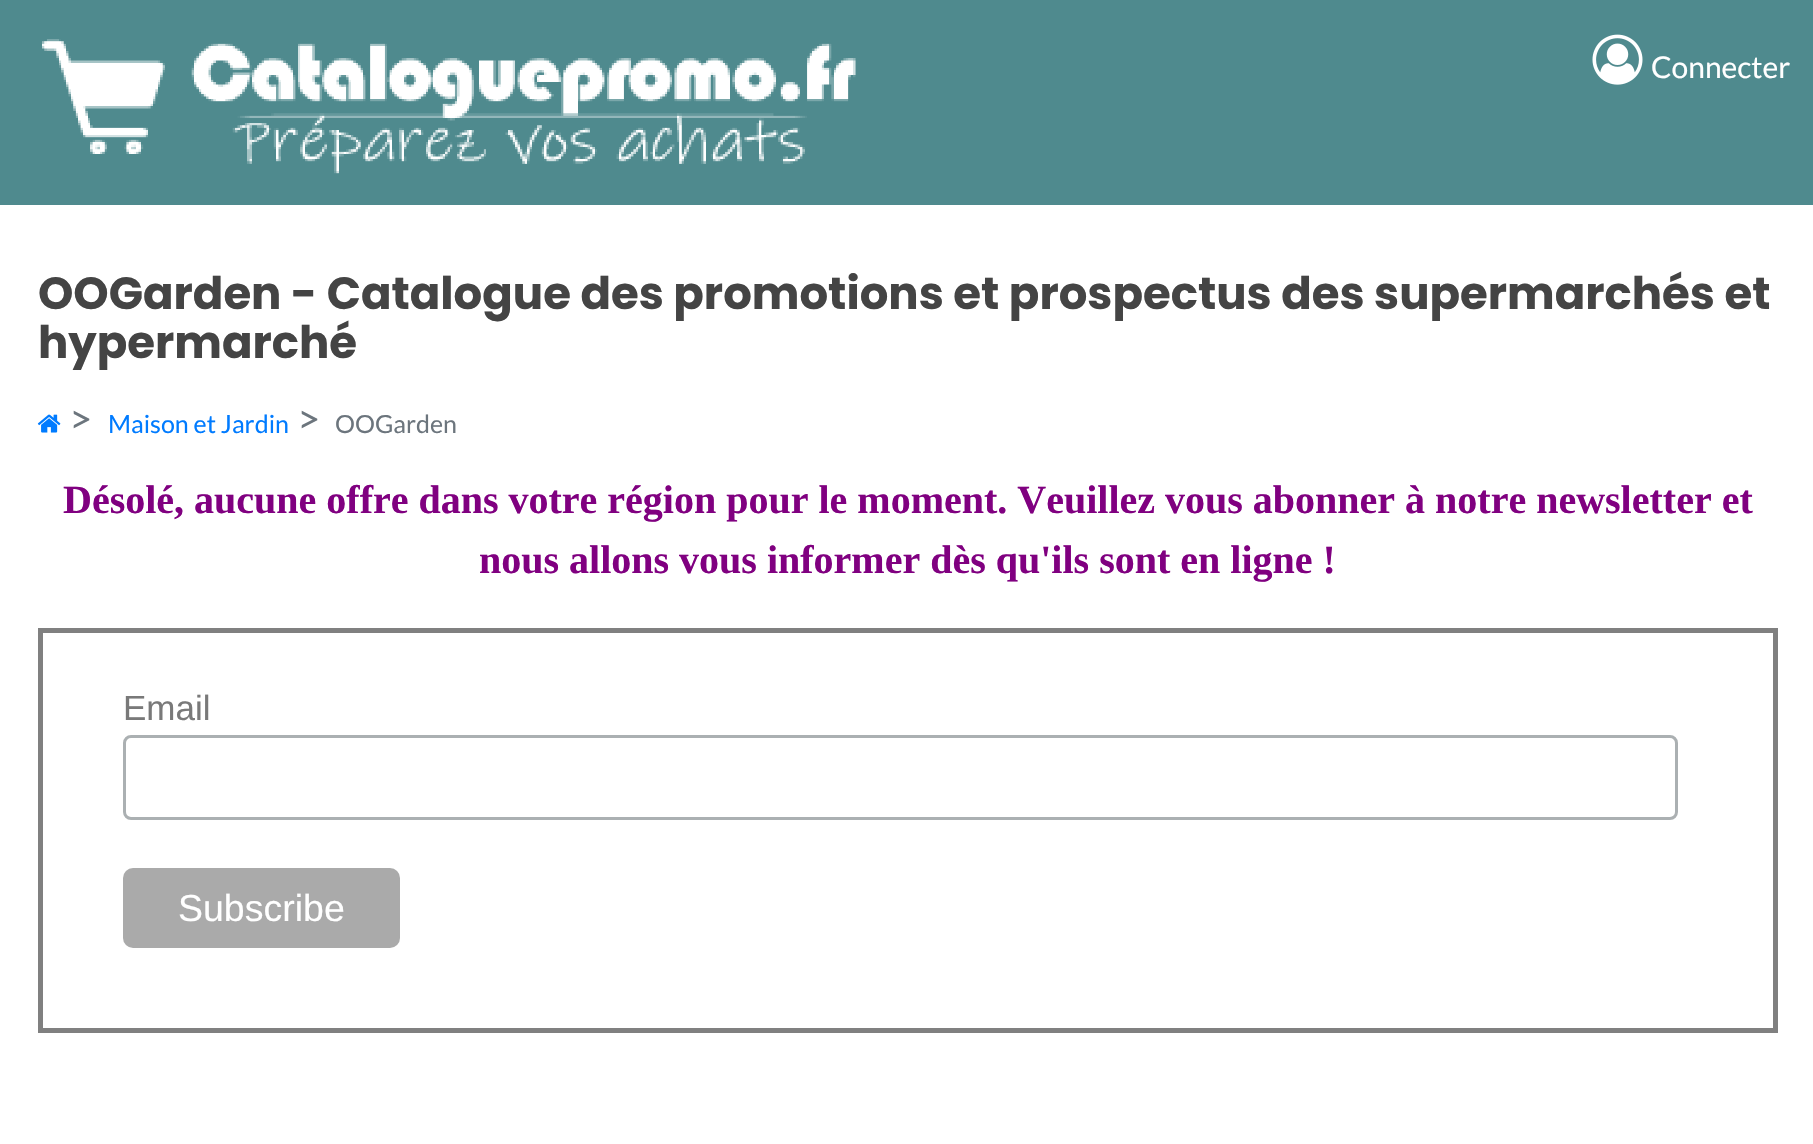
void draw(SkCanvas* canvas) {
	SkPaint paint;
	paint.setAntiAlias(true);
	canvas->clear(0xffffffff);
	paint.setColor(0xff4f8a8e);
	canvas->drawRect(SkRect::MakeXYWH(0, 0, 1813, 205), paint);
	canvas->drawImageRect(SkImages::DeferredFromEncodedData(SkData::MakeFromFileName("img1.png")), SkRect::MakeXYWH(42, 39, 814, 135), SkSamplingOptions());
	canvas->drawImageRect(SkImages::DeferredFromEncodedData(SkData::MakeFromFileName("img2.png")), SkRect::MakeXYWH(1592, 34, 51, 51), SkSamplingOptions());
	SkFont f1(fontMgr->matchFamilyStyle("Lato", SkFontStyle::Normal()), 30);
	f1.setSubpixel(true);
	paint.setColor(0xffffffff);
	canvas->drawString("Connecter", 1651, 78, f1, paint);
	SkFont f2(fontMgr->matchFamilyStyle("Poppins", SkFontStyle::Bold()), 45);
	f2.setSubpixel(true);
	paint.setColor(0xff444444);
	canvas->drawString("OOGarden - Catalogue des promotions et prospectus des supermarchés et", 38, 309, f2, paint);
	canvas->drawString("hypermarché", 38, 358, f2, paint);
	canvas->drawImageRect(SkImages::DeferredFromEncodedData(SkData::MakeFromFileName("img3.png")), SkRect::MakeXYWH(37, 414, 24, 19), SkSamplingOptions());
	SkFont f3(fontMgr->matchFamilyStyle("Lato", SkFontStyle::Normal()), 40);
	f3.setSubpixel(true);
	paint.setColor(0xff6c757d);
	canvas->drawString(">", 69, 433, f3, paint);
	SkFont f4(fontMgr->matchFamilyStyle("Lato", SkFontStyle::Normal()), 25);
	f4.setSubpixel(true);
	paint.setColor(0xff007bff);
	canvas->drawString("Maison et Jardin", 108, 433, f4, paint);
	paint.setColor(0xff6c757d);
	canvas->drawString(">", 297, 433, f3, paint);
	canvas->drawString("OOGarden", 335, 433, f4, paint);
	SkFont f5(fontMgr->matchFamilyStyle("Liberation Serif", SkFontStyle::Bold()), 40);
	f5.setSubpixel(true);
	paint.setColor(0xff800080);
	canvas->drawString("Désolé, aucune offre dans votre région pour le moment. Veuillez vous abonner à notre newsletter et", 63, 513, f5, paint);
	canvas->drawString("nous allons vous informer dès qu'ils sont en ligne !", 479, 573, f5, paint);
	paint.setStroke(true);
	paint.setStrokeWidth(5);
	paint.setColor(0xff808080);
	canvas->drawRect(SkRect::MakeXYWH(40.5, 630.5, 1735, 400), paint);
	SkFont f6(fontMgr->matchFamilyStyle("Liberation Sans", SkFontStyle::Normal()), 35);
	f6.setSubpixel(true);
	paint.setStroke(false);
	paint.setColor(0xff797979);
	canvas->drawString("Email", 123, 720, f6, paint);
	paint.setStroke(true);
	paint.setStrokeWidth(3);
	paint.setColor(0xffabb0b2);
	canvas->drawRoundRect(SkRect::MakeXYWH(124.5, 736.5, 1552, 82), 6.5, 6.5, paint);
	paint.setStroke(false);
	paint.setColor(0xffaaaaaa);
	canvas->drawRoundRect(SkRect::MakeXYWH(123, 868, 277, 80), 10, 10, paint);
	SkFont f7(fontMgr->matchFamilyStyle("Liberation Sans", SkFontStyle::Normal()), 37.5);
	f7.setSubpixel(true);
	paint.setColor(0xffffffff);
	canvas->drawString("Subscribe", 178, 921, f7, paint);
}
